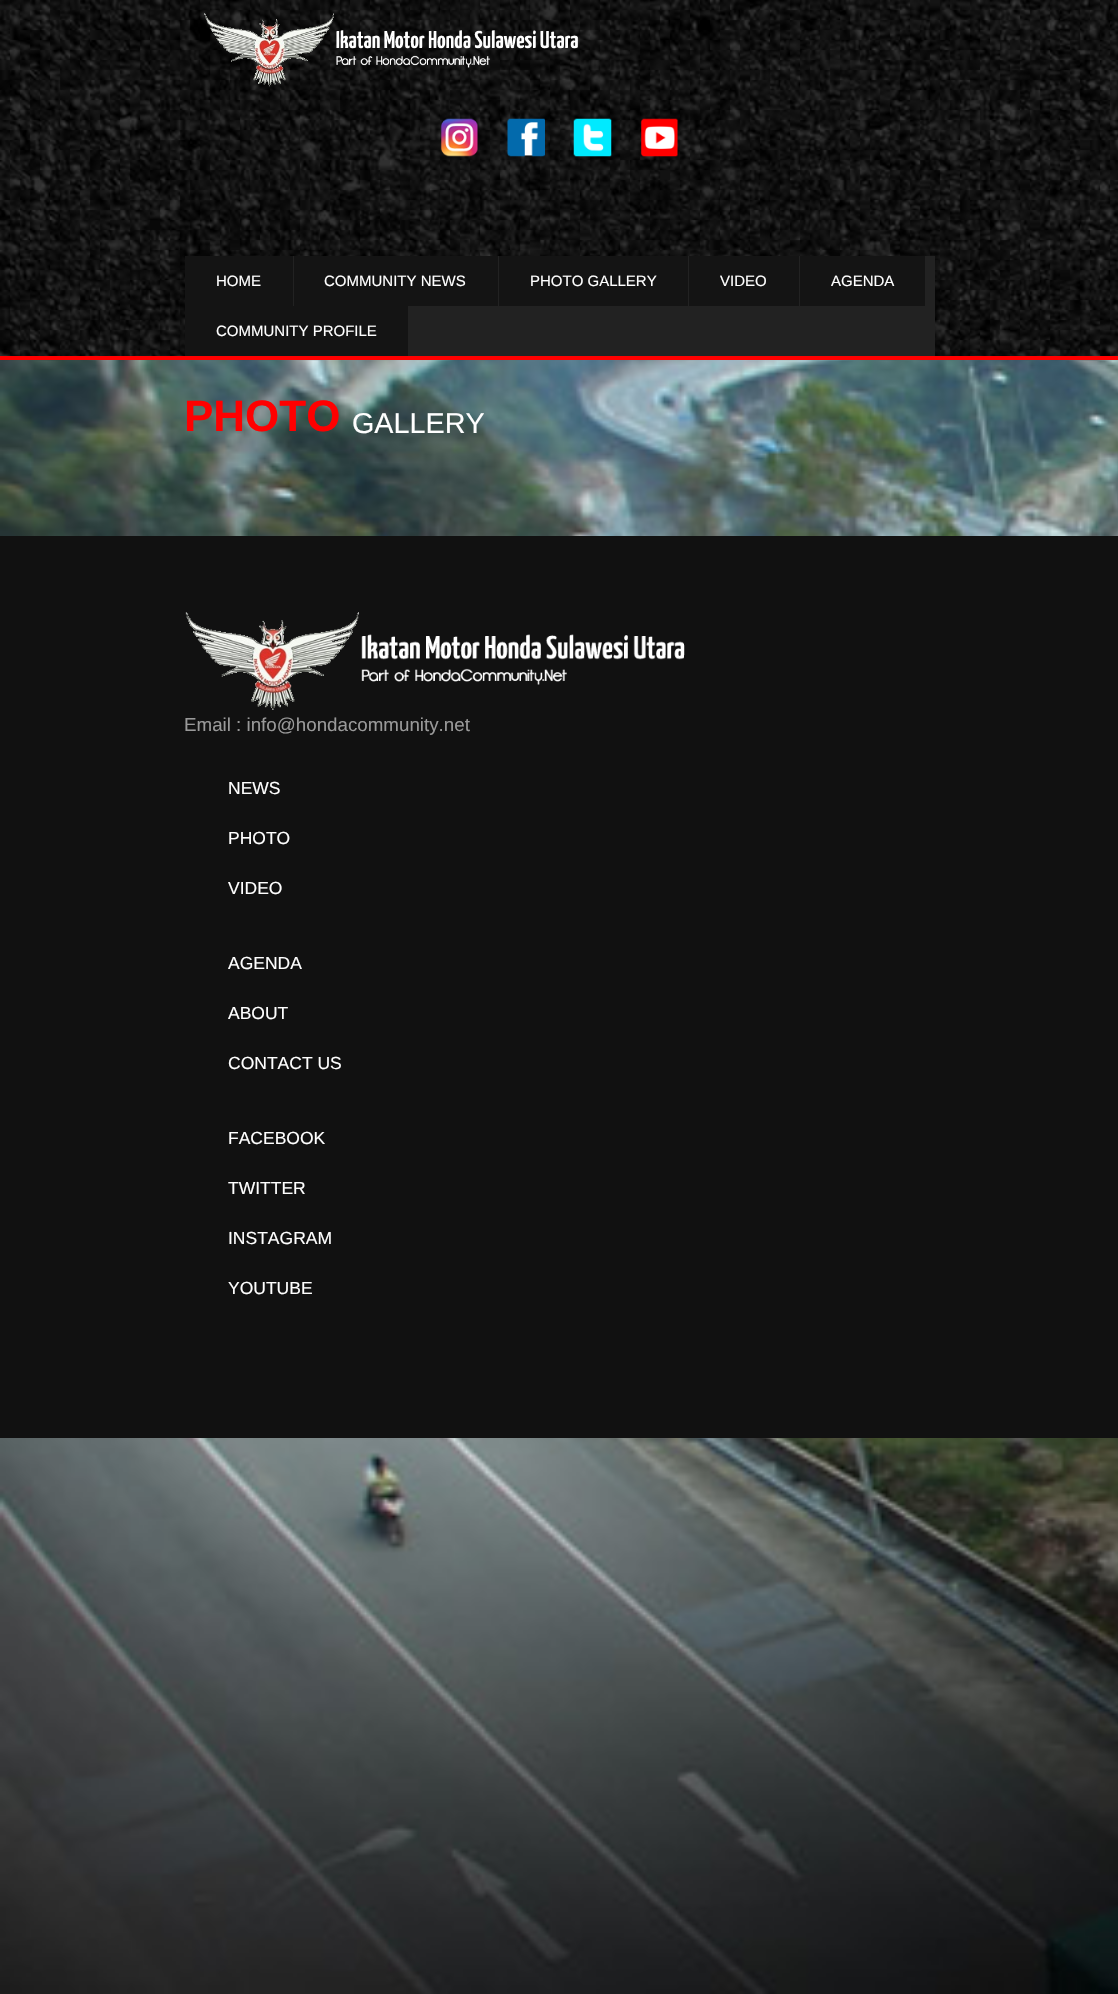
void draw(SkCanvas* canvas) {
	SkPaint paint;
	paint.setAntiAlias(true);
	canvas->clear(0xffffffff);
	canvas->drawImageRect(SkImages::DeferredFromEncodedData(SkData::MakeFromFileName("img1.png")), SkRect::MakeXYWH(0, 360, 1118, 1634), SkSamplingOptions());
	canvas->drawImageRect(SkImages::DeferredFromEncodedData(SkData::MakeFromFileName("img2.png")), SkRect::MakeXYWH(0, 0, 1118, 356), SkSamplingOptions());
	paint.setColor(0xffff0000);
	canvas->drawRect(SkRect::MakeXYWH(0, 356, 1118, 4), paint);
	canvas->drawImageRect(SkImages::DeferredFromEncodedData(SkData::MakeFromFileName("img3.png")), SkRect::MakeXYWH(204, 13, 375, 74), SkSamplingOptions());
	canvas->drawImageRect(SkImages::DeferredFromEncodedData(SkData::MakeFromFileName("img4.png")), SkRect::MakeXYWH(441, 118, 37, 39), SkSamplingOptions());
	canvas->drawImageRect(SkImages::DeferredFromEncodedData(SkData::MakeFromFileName("img5.png")), SkRect::MakeXYWH(507, 118, 38, 39), SkSamplingOptions());
	canvas->drawImageRect(SkImages::DeferredFromEncodedData(SkData::MakeFromFileName("img6.png")), SkRect::MakeXYWH(573, 118, 39, 39), SkSamplingOptions());
	canvas->drawImageRect(SkImages::DeferredFromEncodedData(SkData::MakeFromFileName("img7.png")), SkRect::MakeXYWH(641, 118, 37, 39), SkSamplingOptions());
	paint.setColor(0xff222222);
	canvas->drawRect(SkRect::MakeXYWH(293, 256, 642, 100), paint);
	paint.setColor(0xff141414);
	canvas->drawRect(SkRect::MakeXYWH(185, 256, 108, 50), paint);
	SkFont f1(fontMgr->matchFamilyStyle("Liberation Sans", SkFontStyle::Normal()), 15);
	f1.setSubpixel(true);
	paint.setColor(0xffffffff);
	canvas->drawString("HOME", 216, 286, f1, paint);
	paint.setColor(0xff141414);
	canvas->drawRect(SkRect::MakeXYWH(294, 256, 204, 50), paint);
	paint.setColor(0xffffffff);
	canvas->drawString("COMMUNITY NEWS", 324, 286, f1, paint);
	paint.setColor(0xff141414);
	canvas->drawRect(SkRect::MakeXYWH(499, 256, 189, 50), paint);
	paint.setColor(0xffffffff);
	canvas->drawString("PHOTO GALLERY", 530, 286, f1, paint);
	paint.setColor(0xff141414);
	canvas->drawRect(SkRect::MakeXYWH(689, 256, 110, 50), paint);
	paint.setColor(0xffffffff);
	canvas->drawString("VIDEO", 720, 286, f1, paint);
	paint.setColor(0xff141414);
	canvas->drawRect(SkRect::MakeXYWH(800, 256, 125, 50), paint);
	paint.setColor(0xffffffff);
	canvas->drawString("AGENDA", 831, 286, f1, paint);
	paint.setColor(0xff141414);
	canvas->drawRect(SkRect::MakeXYWH(185, 306, 223, 50), paint);
	paint.setColor(0xffffffff);
	canvas->drawString("COMMUNITY PROFILE", 216, 336, f1, paint);
	SkFont f2(fontMgr->matchFamilyStyle("Liberation Sans", SkFontStyle::Bold()), 44);
	f2.setSubpixel(true);
	paint.setColor(0xffff0000);
	canvas->drawString("PHOTO", 184, 431, f2, paint);
	SkFont f3(fontMgr->matchFamilyStyle("Liberation Sans", SkFontStyle::Normal()), 28.75);
	f3.setSubpixel(true);
	paint.setColor(0xffffffff);
	canvas->drawString("GALLERY", 352, 433, f3, paint);
	paint.setColor(0xff111111);
	canvas->drawRect(SkRect::MakeXYWH(0, 536, 1118, 902), paint);
	canvas->drawImageRect(SkImages::DeferredFromEncodedData(SkData::MakeFromFileName("img8.png")), SkRect::MakeXYWH(185, 612, 500, 98), SkSamplingOptions());
	SkFont f4(fontMgr->matchFamilyStyle("Liberation Sans", SkFontStyle::Normal()), 18.75);
	f4.setSubpixel(true);
	paint.setColor(0xff999999);
	canvas->drawString("Email : info@hondacommunity.net", 184, 731, f4, paint);
	SkFont f5(fontMgr->matchFamilyStyle("Liberation Sans", SkFontStyle::Normal()), 17.5);
	f5.setSubpixel(true);
	paint.setColor(0xffffffff);
	canvas->drawString("NEWS", 228, 794, f5, paint);
	canvas->drawString("PHOTO", 228, 844, f5, paint);
	canvas->drawString("VIDEO", 228, 894, f5, paint);
	canvas->drawString("AGENDA", 228, 969, f5, paint);
	canvas->drawString("ABOUT", 228, 1019, f5, paint);
	canvas->drawString("CONTACT US", 228, 1069, f5, paint);
	canvas->drawString("FACEBOOK", 228, 1144, f5, paint);
	canvas->drawString("TWITTER", 228, 1194, f5, paint);
	canvas->drawString("INSTAGRAM", 228, 1244, f5, paint);
	canvas->drawString("YOUTUBE", 228, 1294, f5, paint);
}
